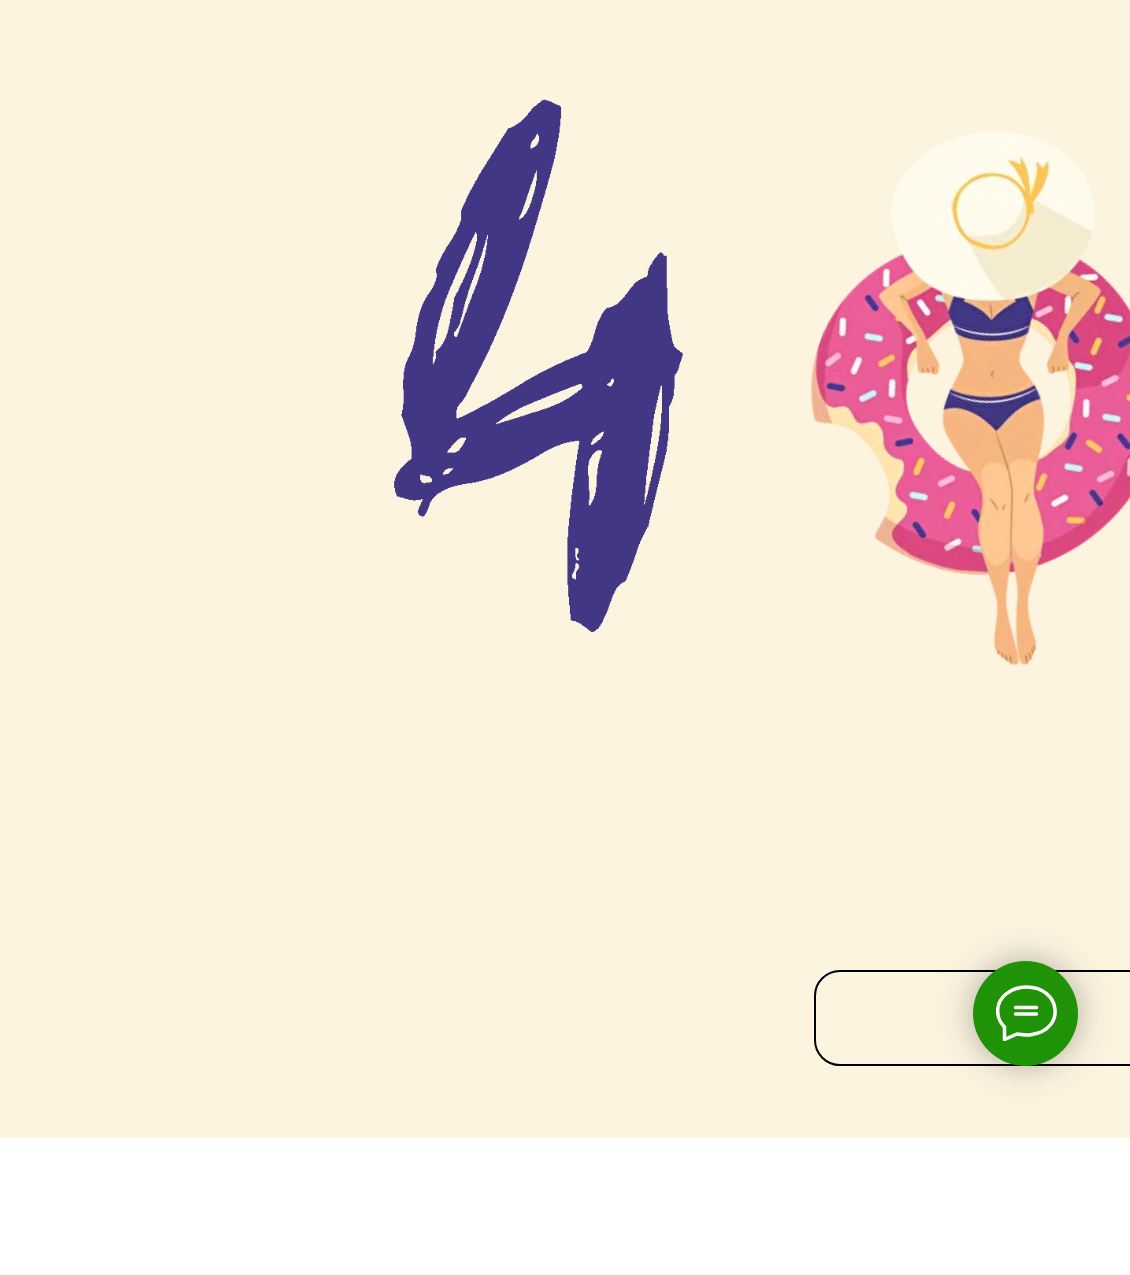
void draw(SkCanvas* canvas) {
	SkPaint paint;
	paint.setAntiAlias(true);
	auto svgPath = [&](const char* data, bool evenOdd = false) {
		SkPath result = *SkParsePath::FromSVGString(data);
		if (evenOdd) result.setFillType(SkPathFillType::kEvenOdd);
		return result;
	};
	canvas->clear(0xffffffff);
	paint.setColor(0xfffdf4e0);
	canvas->drawRect(SkRect::MakeXYWH(0, 0, 1130, 1138), paint);
	canvas->drawImageRect(SkImages::DeferredFromEncodedData(SkData::MakeFromFileName("img1.png")), SkRect::MakeXYWH(394, 99, 290, 534), SkSamplingOptions());
	canvas->drawImageRect(SkImages::DeferredFromEncodedData(SkData::MakeFromFileName("img2.png")), SkRect::MakeXYWH(810, 131, 320, 535), SkSamplingOptions());
	paint.setStroke(true);
	paint.setStrokeWidth(2);
	paint.setColor(0xff000000);
	canvas->drawRoundRect(SkRect::MakeXYWH(815, 971, 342, 94), 25, 25, paint);
	paint.setStroke(false);
	paint.setColor(0x4d000000);
	paint.setMaskFilter(SkMaskFilter::MakeBlur(kNormal_SkBlurStyle, 17.5));
	canvas->drawRoundRect(SkRect::MakeXYWH(973, 961, 105, 105), 52.5, 52.5, paint);
	paint.setMaskFilter(nullptr);
	paint.setColor(0xff209207);
	canvas->drawCircle(1025.5, 1013.5, 52.5, paint);
	canvas->save();
	canvas->clipRect(SkRect::MakeXYWH(996, 985, 61, 56));
	paint.setStroke(true);
	paint.setStrokeWidth(3.5);
	paint.setStrokeCap(SkPaint::kRound_Cap);
	paint.setStrokeJoin(SkPaint::kRound_Join);
	paint.setColor(0xffffffff);
	canvas->drawPath(svgPath("M1015.5 1007.5H1036.5M1015.5 1014H1036.5M1004 1026.5C995 1017 995.5 1002.5 1006 994C1011.5 989.5 1019 987 1026.5 987C1060.5 987 1066.5 1029 1032 1034.5C1026 1036 1022.5 1034.5 1017 1034L1004.5 1039.5V1027Z"), paint);
	canvas->restore();
}
